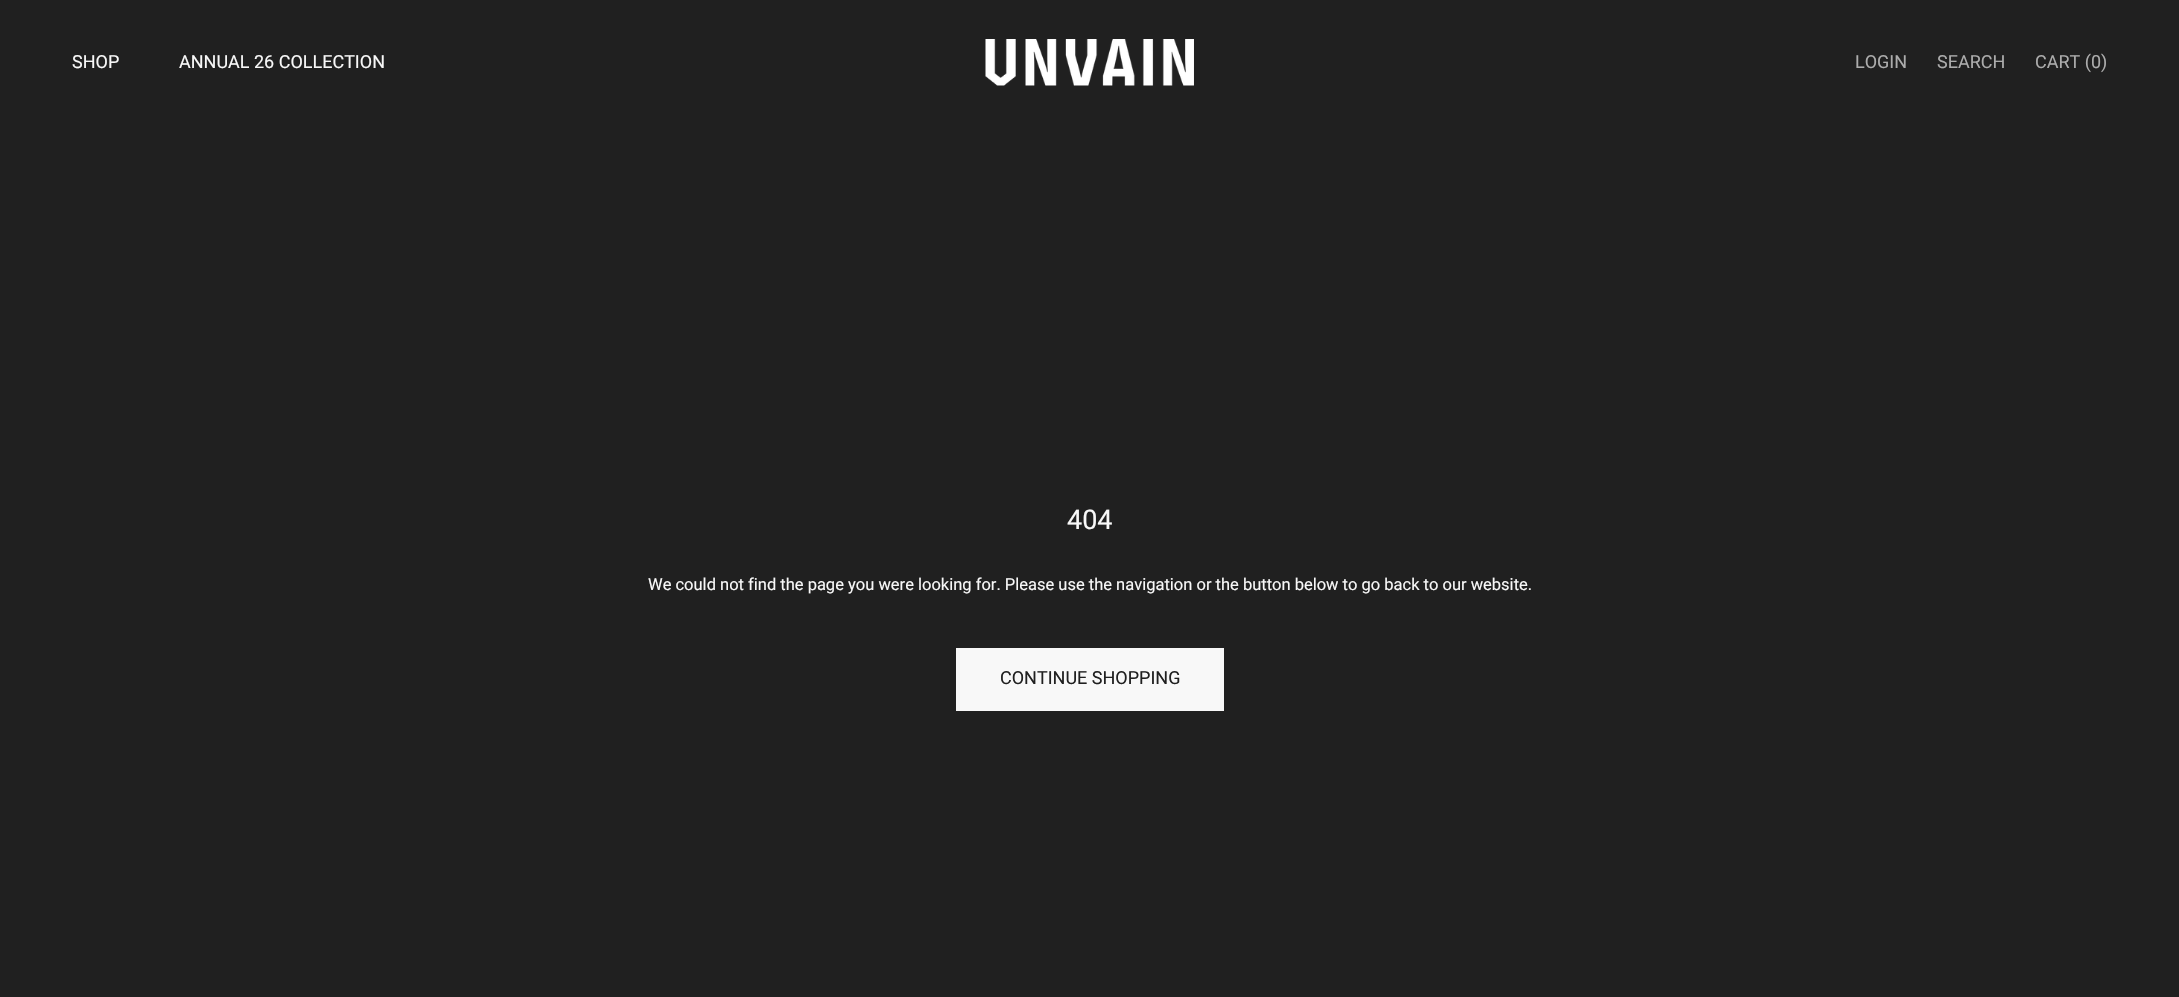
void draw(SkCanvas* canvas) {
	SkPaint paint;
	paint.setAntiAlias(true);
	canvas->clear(0xff202020);
	SkFont f1(fontMgr->matchFamilyStyle("Roboto", SkFontStyle::Normal()), 18);
	f1.setSubpixel(true);
	paint.setColor(0xfff8f8f8);
	canvas->drawString("SHOP", 72, 68, f1, paint);
	canvas->drawString("ANNUAL 26 COLLECTION", 179, 68, f1, paint);
	canvas->drawImageRect(SkImages::DeferredFromEncodedData(SkData::MakeFromFileName("img1.png")), SkRect::MakeXYWH(985, 39, 209, 47), SkSamplingOptions());
	paint.setColor(0xffacacac);
	canvas->drawString("LOGIN", 1855, 68, f1, paint);
	canvas->drawString("SEARCH", 1937, 68, f1, paint);
	canvas->drawString("CART (0)", 2035, 68, f1, paint);
	SkFont f2(fontMgr->matchFamilyStyle("Roboto", SkFontStyle::Normal()), 27);
	f2.setSubpixel(true);
	paint.setColor(0xfff8f8f8);
	canvas->drawString("404", 1067, 529, f2, paint);
	SkFont f3(fontMgr->matchFamilyStyle("Roboto", SkFontStyle::Normal()), 16.5);
	f3.setSubpixel(true);
	canvas->drawString("We could not find the page you were looking for. Please use the navigation or the button below to go back to our website.", 648, 590, f3, paint);
	canvas->drawRect(SkRect::MakeXYWH(957, 649, 266, 61), paint);
	paint.setStroke(true);
	paint.setStrokeWidth(2);
	canvas->drawRect(SkRect::MakeXYWH(957, 649, 266, 61), paint);
	paint.setStroke(false);
	paint.setColor(0xff202020);
	canvas->drawString("CONTINUE SHOPPING", 1000, 684, f1, paint);
}
